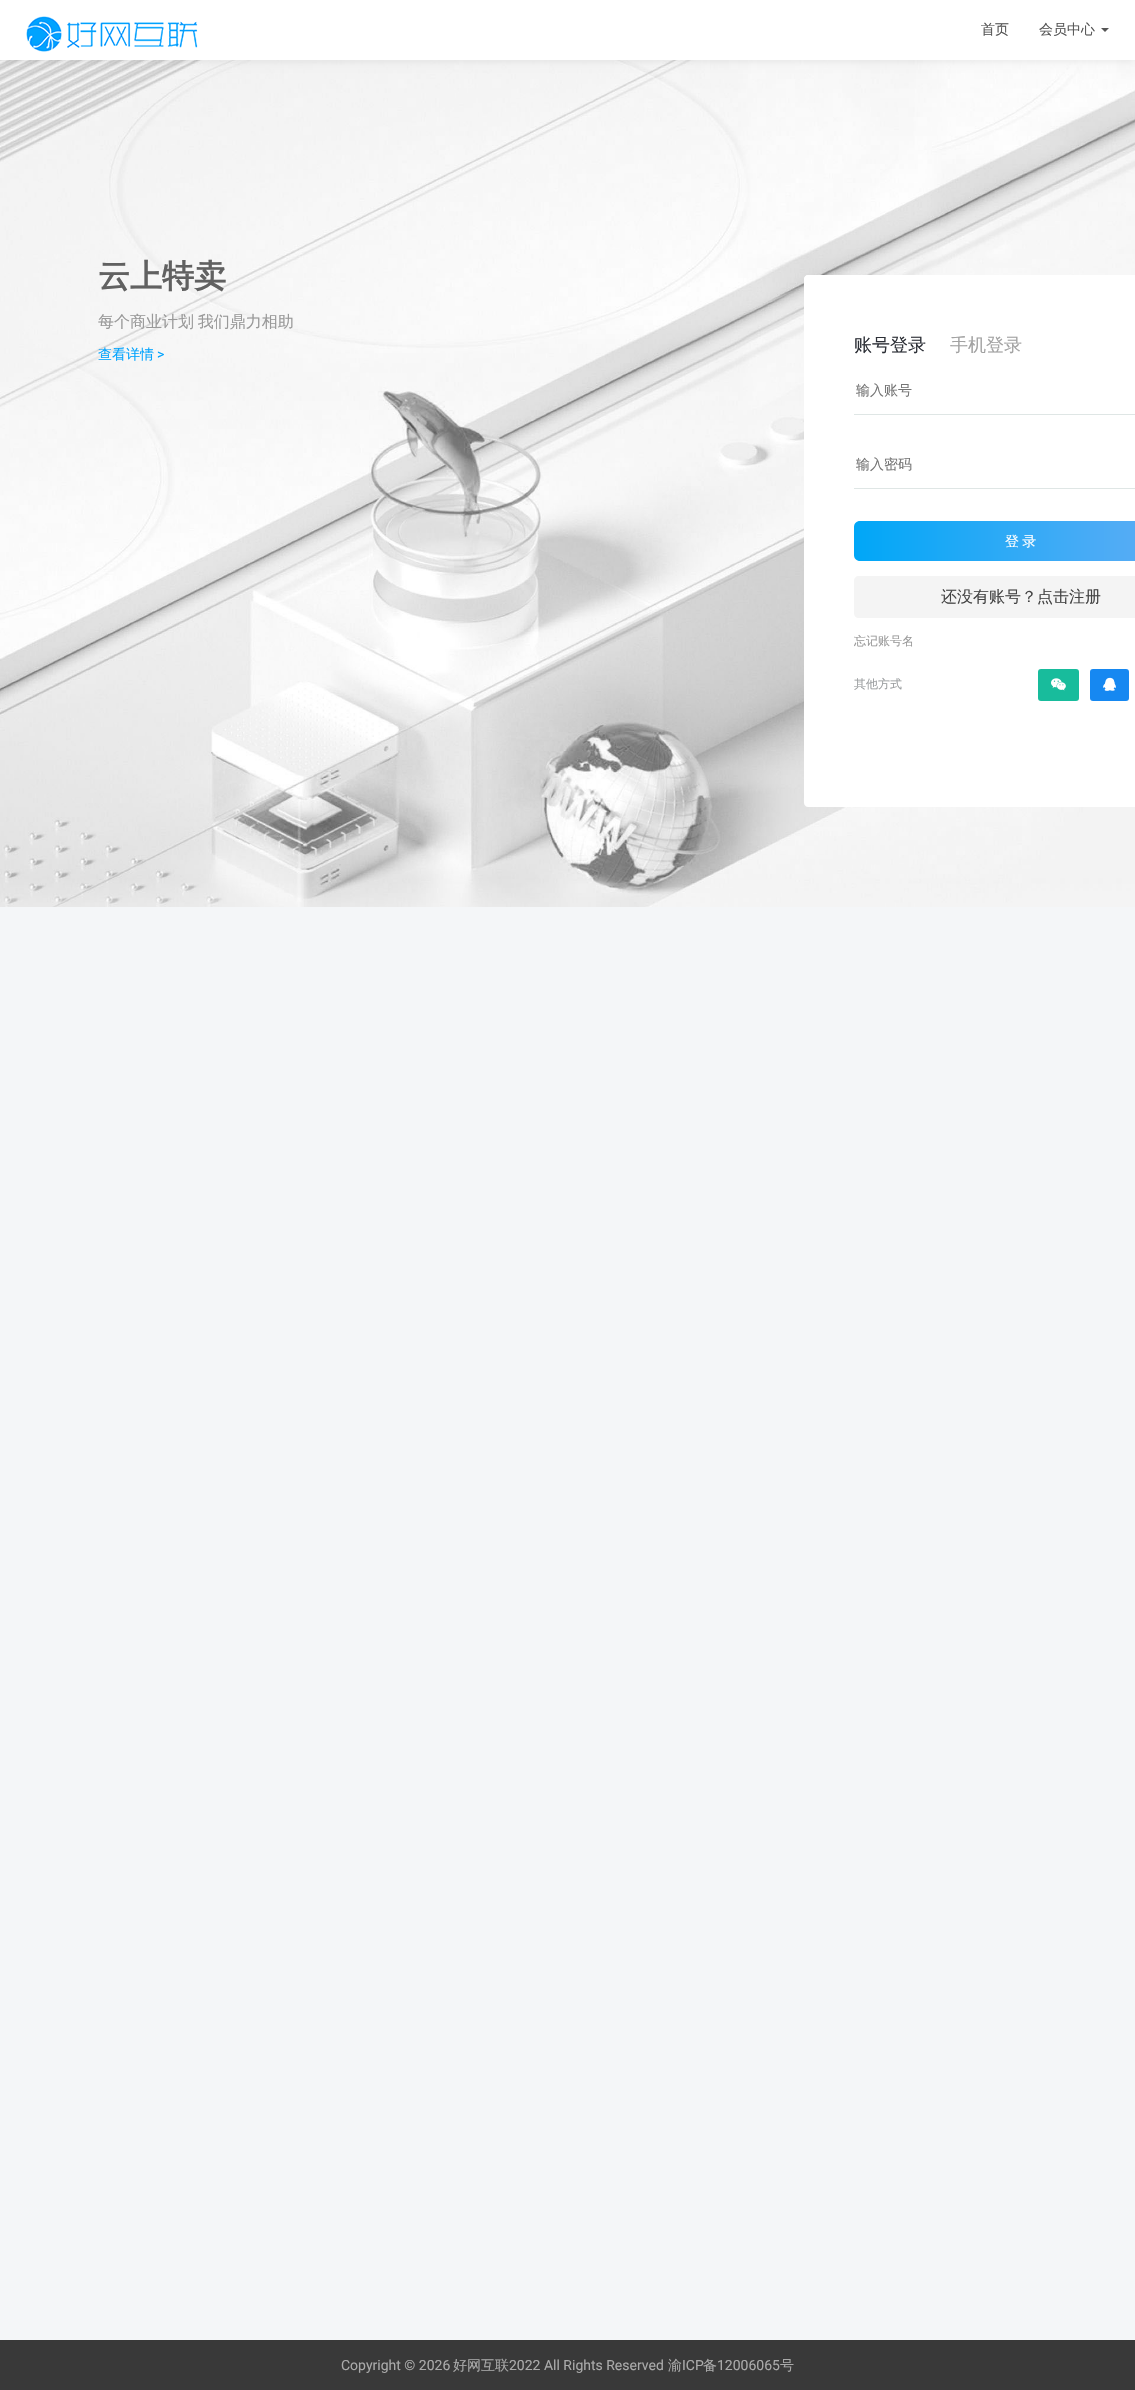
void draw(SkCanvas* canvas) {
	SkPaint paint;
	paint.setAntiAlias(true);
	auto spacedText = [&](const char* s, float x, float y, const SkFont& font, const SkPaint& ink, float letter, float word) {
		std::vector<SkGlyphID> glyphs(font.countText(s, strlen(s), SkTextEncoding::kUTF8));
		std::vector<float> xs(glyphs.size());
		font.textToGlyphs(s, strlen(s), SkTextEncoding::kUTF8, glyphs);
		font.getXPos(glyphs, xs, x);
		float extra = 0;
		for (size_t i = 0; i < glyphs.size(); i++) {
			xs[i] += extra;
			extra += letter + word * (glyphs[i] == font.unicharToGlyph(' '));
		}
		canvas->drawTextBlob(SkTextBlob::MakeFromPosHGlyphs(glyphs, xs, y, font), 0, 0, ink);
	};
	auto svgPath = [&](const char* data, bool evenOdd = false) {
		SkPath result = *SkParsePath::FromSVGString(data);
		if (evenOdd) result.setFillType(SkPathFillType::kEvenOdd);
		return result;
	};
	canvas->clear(0xfff4f6f8);
	canvas->drawImageRect(SkImages::DeferredFromEncodedData(SkData::MakeFromFileName("img2.png")), SkRect::MakeXYWH(0, 60, 1135, 847), SkSamplingOptions());
	paint.setColor(0x14000000);
	paint.setMaskFilter(SkMaskFilter::MakeBlur(kNormal_SkBlurStyle, 4));
	canvas->drawRect(SkRect::MakeXYWH(0, 1, 1135, 60), paint);
	paint.setMaskFilter(nullptr);
	paint.setColor(0xffffffff);
	canvas->drawRect(SkRect::MakeXYWH(0, 0, 1135, 60), paint);
	canvas->drawImageRect(SkImages::DeferredFromEncodedData(SkData::MakeFromFileName("img1.png")), SkRect::MakeXYWH(26, 16, 172, 36), SkSamplingOptions());
	SkFont f1(fontMgr->matchFamilyStyle("WenQuanYi Zen Hei", SkFontStyle(500, SkFontStyle::kNormal_Width, SkFontStyle::kUpright_Slant)), 14);
	f1.setSubpixel(true);
	paint.setColor(0xff555555);
	canvas->drawString("首页", 981, 34, f1, paint);
	canvas->drawString("会员中心", 1039, 34, f1, paint);
	canvas->drawPath(svgPath("M1101 28H1109L1105 32Z"), paint);
	SkFont f2(fontMgr->matchFamilyStyle("WenQuanYi Zen Hei", SkFontStyle::Bold()), 32);
	f2.setSubpixel(true);
	paint.setColor(0xff616161);
	canvas->drawString("云上特卖", 98, 287, f2, paint);
	SkFont f3(fontMgr->matchFamilyStyle("WenQuanYi Zen Hei", SkFontStyle(500, SkFontStyle::kNormal_Width, SkFontStyle::kUpright_Slant)), 16);
	f3.setSubpixel(true);
	paint.setColor(0xff999999);
	spacedText("每个商业计划 我们鼎力相助", 98, 327, f3, paint, 0, -1);
	paint.setColor(0xff00a3fe);
	canvas->drawString("查看详情", 98, 359, f1, paint);
	SkFont f4(fontMgr->matchFamilyStyle("Roboto", SkFontStyle::Normal()), 14);
	f4.setSubpixel(true);
	canvas->drawString(">", 157, 359, f4, paint);
	paint.setColor(0xffffffff);
	canvas->drawPath(svgPath("M808 275H1135V807H808C806 807 804 805 804 803V279C804 277 806 275 808 275Z"), paint);
	canvas->drawPath(svgPath("M808 275H1135V733H808C806 733 804 731 804 729V279C804 277 806 275 808 275Z"), paint);
	SkFont f5(fontMgr->matchFamilyStyle("WenQuanYi Zen Hei", SkFontStyle(500, SkFontStyle::kNormal_Width, SkFontStyle::kUpright_Slant)), 18);
	f5.setSubpixel(true);
	paint.setColor(0xff2c2f36);
	canvas->drawString("账号登录", 854, 351, f5, paint);
	paint.setColor(0xffa2a2a2);
	canvas->drawString("手机登录", 950, 351, f5, paint);
	paint.setColor(0xffdfe6e5);
	canvas->drawRect(SkRect::MakeXYWH(854, 414, 281, 1), paint);
	canvas->save();
	canvas->clipRect(SkRect::MakeXYWH(856, 382, 279, 18));
	paint.setColor(0xff757575);
	canvas->drawString("输入账号", 856, 395, f1, paint);
	canvas->restore();
	paint.setColor(0xffdfe6e5);
	canvas->drawRect(SkRect::MakeXYWH(854, 488, 281, 1), paint);
	canvas->save();
	canvas->clipRect(SkRect::MakeXYWH(856, 456, 279, 18));
	paint.setColor(0xff757575);
	canvas->drawString("输入密码", 856, 469, f1, paint);
	canvas->restore();
	{
		const SkColor colors[] = {0xff65adf5, 0xff00a7f7};
		const float stops[] = {0, 1};
		const SkPoint ends[] = {{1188, 541}, {854, 541}};
		paint.setShader(SkGradientShader::MakeLinear(ends, colors, stops, 2, SkTileMode::kClamp));
		paint.setAlpha(255);
	}
	canvas->drawPath(svgPath("M860 521H1135V561H860C856.5 561 854 558.5 854 555V527C854 523.5 856.5 521 860 521Z"), paint);
	paint.setShader(nullptr);
	paint.setColor(0xffffffff);
	spacedText("登 录", 1005, 546, f1, paint, 0, -1);
	paint.setColor(0xfff4f4f4);
	canvas->drawPath(svgPath("M859 576H1135V618H859C856 618 854 616 854 613V581C854 578 856 576 859 576Z"), paint);
	paint.setColor(0xff444444);
	canvas->drawString("还没有账号？点击注册", 941, 602, f3, paint);
	SkFont f6(fontMgr->matchFamilyStyle("WenQuanYi Zen Hei", SkFontStyle(500, SkFontStyle::kNormal_Width, SkFontStyle::kUpright_Slant)), 12);
	f6.setSubpixel(true);
	paint.setColor(0xff999999);
	canvas->drawString("忘记账号名", 854, 645, f6, paint);
	paint.setColor(0xff9b9ea0);
	canvas->drawString("其他方式", 854, 688, f6, paint);
	paint.setColor(0xff18bc9c);
	canvas->drawRoundRect(SkRect::MakeXYWH(1038, 669, 41, 32), 3, 3, paint);
	canvas->drawImageRect(SkImages::DeferredFromEncodedData(SkData::MakeFromFileName("img3.png")), SkRect::MakeXYWH(1051, 678, 15, 13), SkSamplingOptions());
	paint.setColor(0xff1688f1);
	canvas->drawRoundRect(SkRect::MakeXYWH(1090, 669, 39, 32), 3, 3, paint);
	canvas->drawImageRect(SkImages::DeferredFromEncodedData(SkData::MakeFromFileName("img4.png")), SkRect::MakeXYWH(1103, 677, 13, 14), SkSamplingOptions());
	paint.setColor(0xff393939);
	canvas->drawRect(SkRect::MakeXYWH(0, 2340, 1135, 50), paint);
	paint.setColor(0xffaaaaaa);
	canvas->drawString("Copyright © 2026", 341, 2370, f4, paint);
	canvas->drawString("好网互联", 453, 2370, f1, paint);
	canvas->drawString("2022 All Rights Reserved", 509, 2370, f4, paint);
	canvas->drawString("渝", 668, 2370, f1, paint);
	canvas->drawString("ICP", 682, 2370, f4, paint);
	canvas->drawString("备", 703, 2370, f1, paint);
	canvas->drawString("12006065", 717, 2370, f4, paint);
	canvas->drawString("号", 780, 2370, f1, paint);
}
